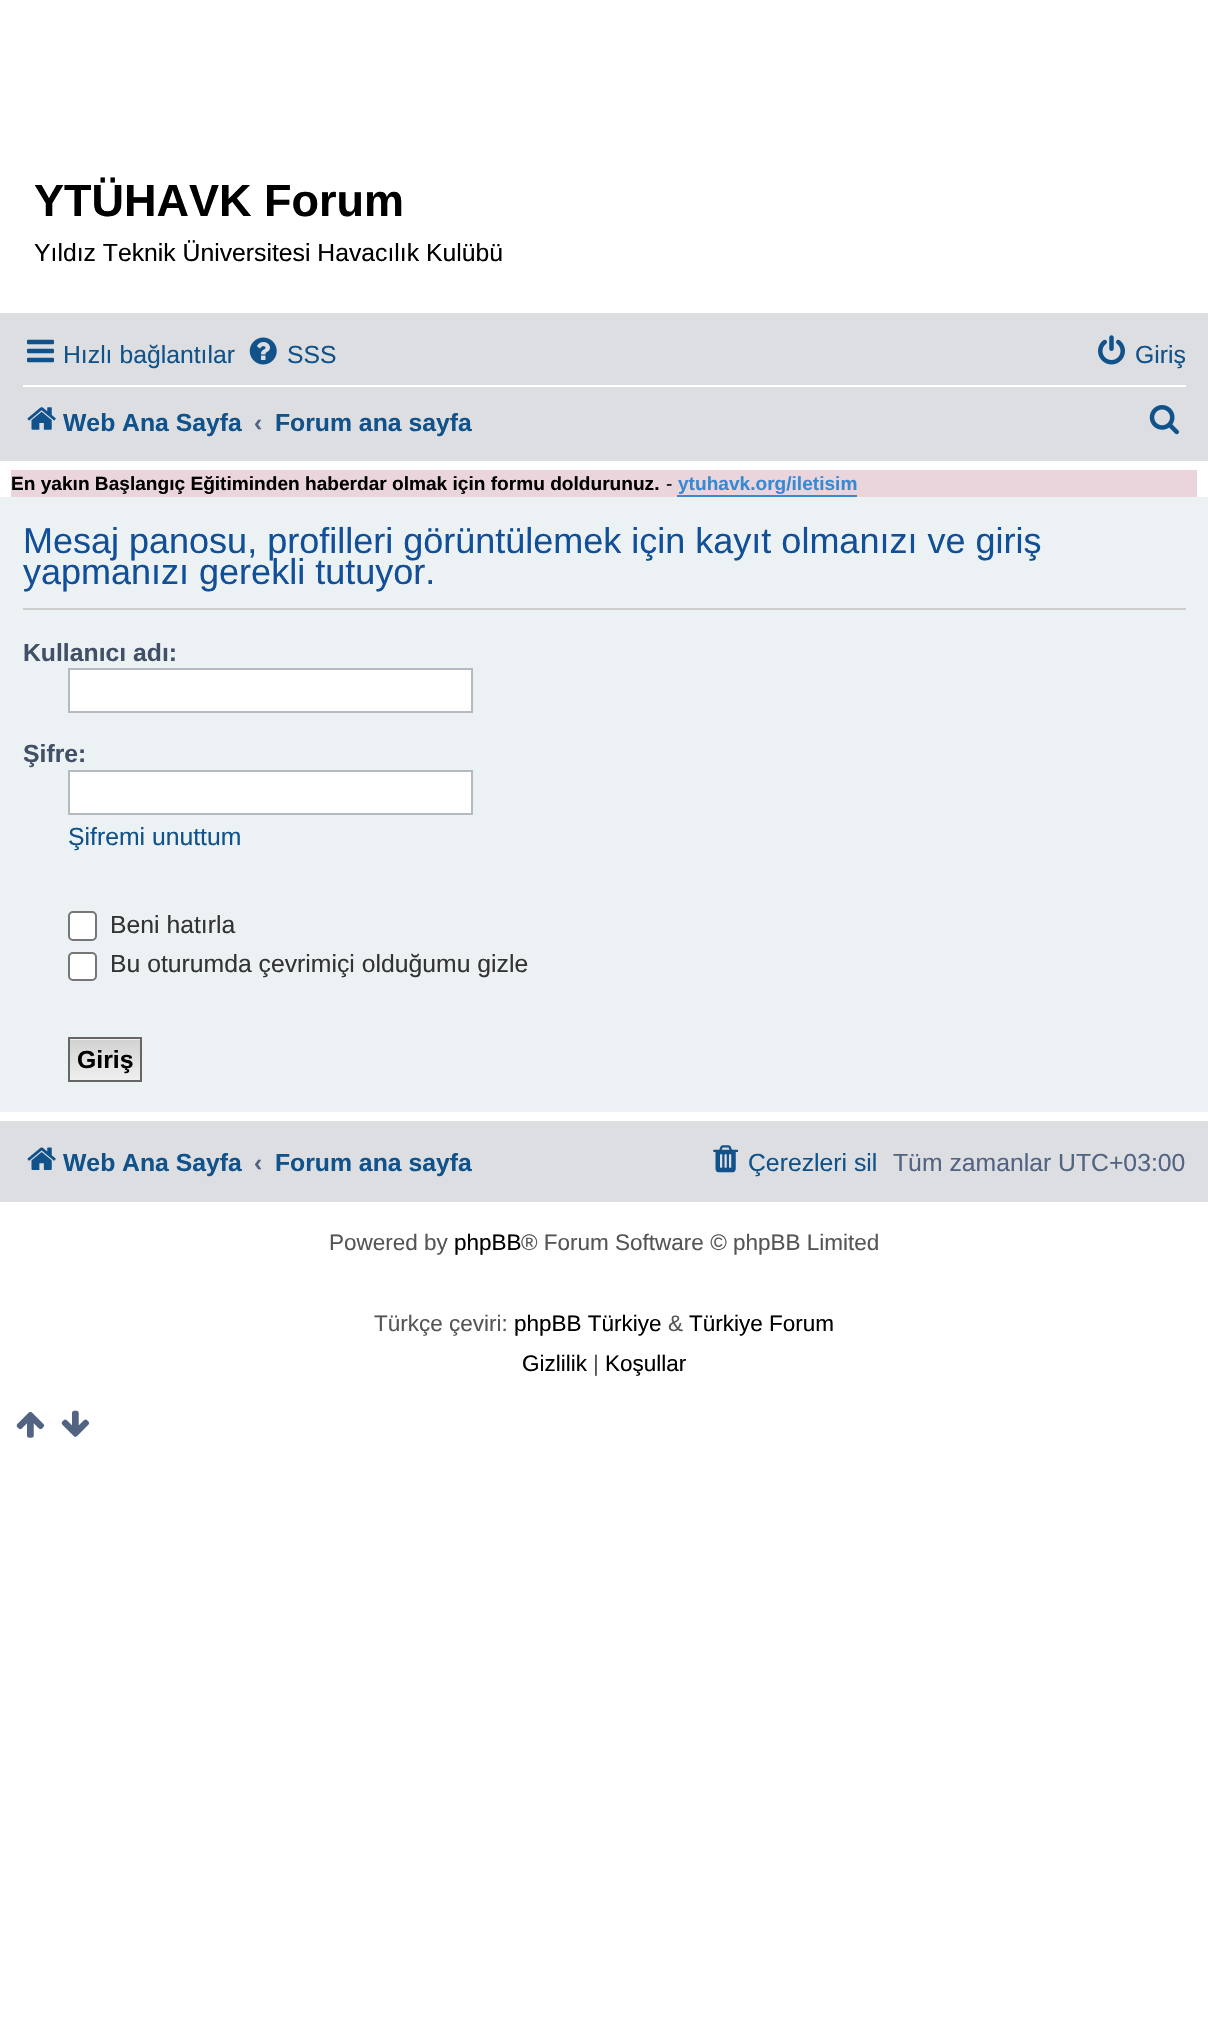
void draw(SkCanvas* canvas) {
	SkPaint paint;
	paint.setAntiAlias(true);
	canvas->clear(0xffffffff);
	SkFont f1(fontMgr->matchFamilyStyle("Liberation Sans", SkFontStyle::Bold()), 45);
	f1.setSubpixel(true);
	paint.setColor(0xff000000);
	canvas->drawString("YTÜHAVK Forum", 34, 216, f1, paint);
	SkFont f2(fontMgr->matchFamilyStyle("Liberation Sans", SkFontStyle::Normal()), 24.75);
	f2.setSubpixel(true);
	canvas->drawString("Yıldız Teknik Üniversitesi Havacılık Kulübü", 34, 261, f2, paint);
	paint.setColor(0xffdcdee2);
	canvas->drawRect(SkRect::MakeXYWH(0, 313, 1208, 148), paint);
	canvas->drawImageRect(SkImages::DeferredFromEncodedData(SkData::MakeFromFileName("img1.png")), SkRect::MakeXYWH(27, 339, 27, 24), SkSamplingOptions());
	paint.setColor(0xff105289);
	canvas->drawString("Hızlı bağlantılar", 63, 363, f2, paint);
	canvas->drawImageRect(SkImages::DeferredFromEncodedData(SkData::MakeFromFileName("img2.png")), SkRect::MakeXYWH(249, 337, 28, 28), SkSamplingOptions());
	canvas->drawString("SSS", 287, 363, f2, paint);
	canvas->drawImageRect(SkImages::DeferredFromEncodedData(SkData::MakeFromFileName("img3.png")), SkRect::MakeXYWH(1098, 335, 27, 30), SkSamplingOptions());
	canvas->drawString("Giriş", 1135, 363, f2, paint);
	paint.setColor(0xffffffff);
	canvas->drawRect(SkRect::MakeXYWH(23, 385, 1163, 2), paint);
	canvas->drawImageRect(SkImages::DeferredFromEncodedData(SkData::MakeFromFileName("img4.png")), SkRect::MakeXYWH(27, 407, 29, 23), SkSamplingOptions());
	SkFont f3(fontMgr->matchFamilyStyle("Liberation Sans", SkFontStyle::Bold()), 24.75);
	f3.setSubpixel(true);
	paint.setColor(0xff105289);
	canvas->drawString("Web Ana Sayfa", 63, 431, f3, paint);
	paint.setColor(0xff536482);
	canvas->drawString("‹", 254, 431, f3, paint);
	paint.setColor(0xff105289);
	canvas->drawString("Forum ana sayfa", 275, 431, f3, paint);
	canvas->drawImageRect(SkImages::DeferredFromEncodedData(SkData::MakeFromFileName("img5.png")), SkRect::MakeXYWH(1149, 405, 30, 30), SkSamplingOptions());
	paint.setColor(0xffebd5dd);
	canvas->drawRect(SkRect::MakeXYWH(11, 470, 1186, 27), paint);
	SkFont f4(fontMgr->matchFamilyStyle("Liberation Sans", SkFontStyle::Bold()), 19.1);
	f4.setSubpixel(true);
	paint.setColor(0xff000000);
	canvas->drawString("En yakın Başlangıç Eğitiminden haberdar olmak için formu doldurunuz.", 11, 490, f4, paint);
	SkFont f5(fontMgr->matchFamilyStyle("Liberation Sans", SkFontStyle::Normal()), 19.1);
	f5.setSubpixel(true);
	canvas->drawString("-", 666, 490, f5, paint);
	paint.setColor(0xff368ad2);
	canvas->drawRect(SkRect::MakeXYWH(677, 495, 180, 2), paint);
	canvas->drawString("ytuhavk.org/iletisim", 678, 490, f4, paint);
	paint.setColor(0xffecf1f3);
	canvas->drawRect(SkRect::MakeXYWH(0, 497, 1208, 615), paint);
	paint.setColor(0xffcccccc);
	canvas->drawRect(SkRect::MakeXYWH(23, 608, 1163, 2), paint);
	SkFont f6(fontMgr->matchFamilyStyle("Liberation Sans", SkFontStyle::Normal()), 36);
	f6.setSubpixel(true);
	paint.setColor(0xff115098);
	canvas->drawString("Mesaj panosu, profilleri görüntülemek için kayıt olmanızı ve giriş", 23, 553, f6, paint);
	canvas->drawString("yapmanızı gerekli tutuyor.", 23, 584, f6, paint);
	paint.setColor(0xff425067);
	canvas->drawString("Kullanıcı adı:", 23, 661, f3, paint);
	paint.setColor(0xffffffff);
	canvas->drawRect(SkRect::MakeXYWH(69, 669, 403, 43), paint);
	paint.setStroke(true);
	paint.setStrokeWidth(2);
	paint.setColor(0xffb4bac0);
	canvas->drawRect(SkRect::MakeXYWH(69, 669, 403, 43), paint);
	paint.setStroke(false);
	paint.setColor(0xff425067);
	canvas->drawString("Şifre:", 23, 762, f3, paint);
	paint.setColor(0xffffffff);
	canvas->drawRect(SkRect::MakeXYWH(69, 771, 403, 43), paint);
	paint.setStroke(true);
	paint.setColor(0xffb4bac0);
	canvas->drawRect(SkRect::MakeXYWH(69, 771, 403, 43), paint);
	paint.setStroke(false);
	paint.setColor(0xff105289);
	canvas->drawString("Şifremi unuttum", 68, 845, f2, paint);
	paint.setColor(0xffffffff);
	canvas->drawRoundRect(SkRect::MakeXYWH(69, 912, 27, 28), 4, 4, paint);
	paint.setStroke(true);
	paint.setColor(0xff767676);
	canvas->drawRoundRect(SkRect::MakeXYWH(69, 912, 27, 28), 4, 4, paint);
	paint.setStroke(false);
	paint.setColor(0xff333333);
	canvas->drawString("Beni hatırla", 110, 933, f2, paint);
	paint.setColor(0xffffffff);
	canvas->drawRoundRect(SkRect::MakeXYWH(69, 953, 27, 27), 4, 4, paint);
	paint.setStroke(true);
	paint.setColor(0xff767676);
	canvas->drawRoundRect(SkRect::MakeXYWH(69, 953, 27, 27), 4, 4, paint);
	paint.setStroke(false);
	paint.setColor(0xff333333);
	canvas->drawString("Bu oturumda çevrimiçi olduğumu gizle", 110, 972, f2, paint);
	paint.setColor(0xffefefef);
	canvas->drawRect(SkRect::MakeXYWH(70, 1039, 70, 1), paint);
	{
		const SkColor colors[] = {0xffd2d2d2, 0xffefefef};
		const float stops[] = {0, 1};
		const SkPoint ends[] = {{105, 1040}, {105, 1080}};
		paint.setShader(SkGradientShader::MakeLinear(ends, colors, stops, 2, SkTileMode::kClamp));
		paint.setAlpha(255);
	}
	canvas->drawRect(SkRect::MakeXYWH(70, 1040, 70, 40), paint);
	paint.setStroke(true);
	paint.setShader(nullptr);
	paint.setColor(0xff666666);
	canvas->drawRect(SkRect::MakeXYWH(69, 1038, 72, 43), paint);
	paint.setStroke(false);
	paint.setColor(0xff000000);
	canvas->drawString("Giriş", 77, 1068, f3, paint);
	paint.setColor(0xffdcdee2);
	canvas->drawRect(SkRect::MakeXYWH(0, 1121, 1208, 81), paint);
	canvas->drawImageRect(SkImages::DeferredFromEncodedData(SkData::MakeFromFileName("img6.png")), SkRect::MakeXYWH(27, 1147, 29, 23), SkSamplingOptions());
	paint.setColor(0xff105289);
	canvas->drawString("Web Ana Sayfa", 63, 1171, f3, paint);
	paint.setColor(0xff536482);
	canvas->drawString("‹", 254, 1171, f3, paint);
	paint.setColor(0xff105289);
	canvas->drawString("Forum ana sayfa", 275, 1171, f3, paint);
	canvas->drawImageRect(SkImages::DeferredFromEncodedData(SkData::MakeFromFileName("img7.png")), SkRect::MakeXYWH(713, 1145, 25, 28), SkSamplingOptions());
	canvas->drawString("Çerezleri sil", 748, 1171, f2, paint);
	paint.setColor(0xff536482);
	canvas->drawString("Tüm zamanlar UTC+03:00", 893, 1171, f2, paint);
	SkFont f7(fontMgr->matchFamilyStyle("Liberation Sans", SkFontStyle::Normal()), 22.5);
	f7.setSubpixel(true);
	paint.setColor(0xff555555);
	canvas->drawString("Powered by", 329, 1250, f7, paint);
	paint.setColor(0xff000000);
	canvas->drawString("phpBB", 454, 1250, f7, paint);
	paint.setColor(0xff555555);
	canvas->drawString("® Forum Software © phpBB Limited", 521, 1250, f7, paint);
	canvas->drawString("Türkçe çeviri:", 374, 1331, f7, paint);
	paint.setColor(0xff000000);
	canvas->drawString("phpBB Türkiye", 514, 1331, f7, paint);
	paint.setColor(0xff555555);
	canvas->drawString("&", 668, 1331, f7, paint);
	paint.setColor(0xff000000);
	canvas->drawString("Türkiye Forum", 689, 1331, f7, paint);
	canvas->drawString("Gizlilik", 522, 1371, f7, paint);
	paint.setColor(0xff555555);
	canvas->drawString("|", 593, 1371, f7, paint);
	paint.setColor(0xff000000);
	canvas->drawString("Koşullar", 605, 1371, f7, paint);
	canvas->drawImageRect(SkImages::DeferredFromEncodedData(SkData::MakeFromFileName("img8.png")), SkRect::MakeXYWH(16, 1411, 29, 27), SkSamplingOptions());
	canvas->drawImageRect(SkImages::DeferredFromEncodedData(SkData::MakeFromFileName("img9.png")), SkRect::MakeXYWH(61, 1410, 28, 27), SkSamplingOptions());
}
